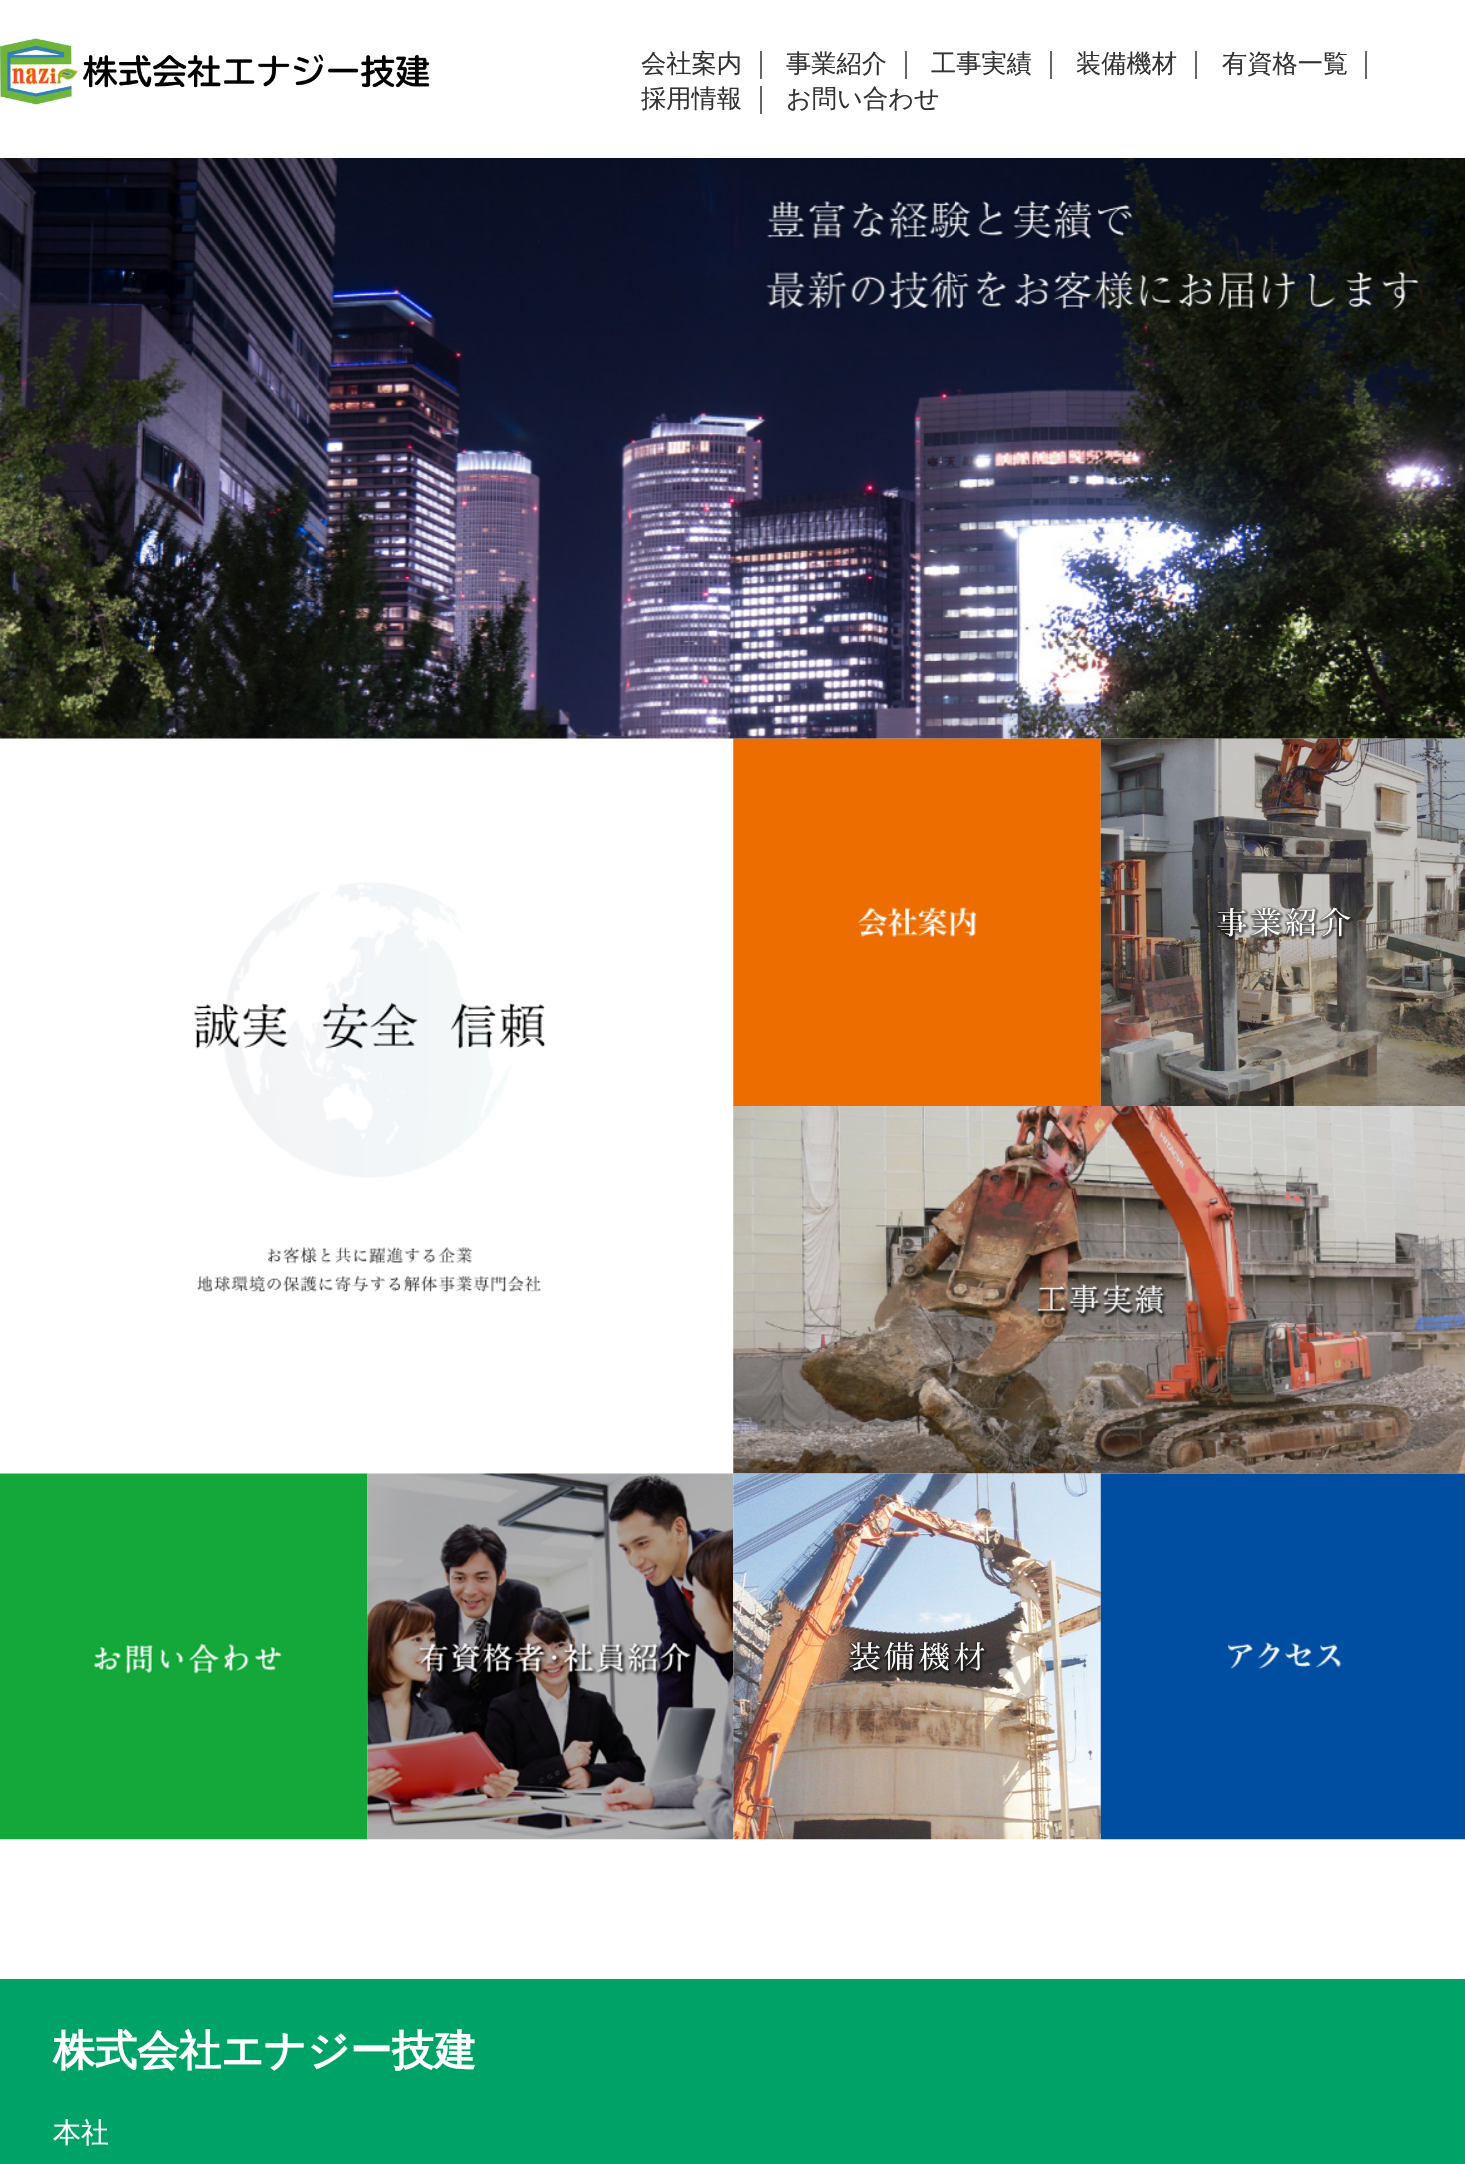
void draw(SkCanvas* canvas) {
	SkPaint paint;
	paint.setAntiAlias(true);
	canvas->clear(0xffffffff);
	canvas->drawImageRect(SkImages::DeferredFromEncodedData(SkData::MakeFromFileName("img1.png")), SkRect::MakeXYWH(0, 38, 430, 67), SkSamplingOptions());
	paint.setColor(0xff666666);
	canvas->drawRect(SkRect::MakeXYWH(760, 51, 2, 28), paint);
	SkFont f1(fontMgr->matchFamilyStyle("WenQuanYi Zen Hei", SkFontStyle(500, SkFontStyle::kNormal_Width, SkFontStyle::kUpright_Slant)), 25.25);
	f1.setSubpixel(true);
	paint.setColor(0xff333333);
	canvas->drawString("会社案内", 641, 72, f1, paint);
	paint.setColor(0xff666666);
	canvas->drawRect(SkRect::MakeXYWH(905, 51, 2, 28), paint);
	paint.setColor(0xff333333);
	canvas->drawString("事業紹介", 786, 72, f1, paint);
	paint.setColor(0xff666666);
	canvas->drawRect(SkRect::MakeXYWH(1050, 51, 2, 28), paint);
	paint.setColor(0xff333333);
	canvas->drawString("工事実績", 931, 72, f1, paint);
	paint.setColor(0xff666666);
	canvas->drawRect(SkRect::MakeXYWH(1195, 51, 2, 28), paint);
	paint.setColor(0xff333333);
	canvas->drawString("装備機材", 1076, 72, f1, paint);
	paint.setColor(0xff666666);
	canvas->drawRect(SkRect::MakeXYWH(1365, 51, 2, 28), paint);
	paint.setColor(0xff333333);
	canvas->drawString("有資格一覧", 1222, 72, f1, paint);
	paint.setColor(0xff666666);
	canvas->drawRect(SkRect::MakeXYWH(760, 86, 2, 28), paint);
	paint.setColor(0xff333333);
	canvas->drawString("採用情報", 641, 107, f1, paint);
	canvas->drawString("お問い合わせ", 786, 107, f1, paint);
	canvas->drawImageRect(SkImages::DeferredFromEncodedData(SkData::MakeFromFileName("img4.png")), SkRect::MakeXYWH(733, 738, 368, 368), SkSamplingOptions());
	canvas->drawImageRect(SkImages::DeferredFromEncodedData(SkData::MakeFromFileName("img5.png")), SkRect::MakeXYWH(1100, 738, 365, 368), SkSamplingOptions());
	canvas->drawImageRect(SkImages::DeferredFromEncodedData(SkData::MakeFromFileName("img2.png")), SkRect::MakeXYWH(0, 158, 1465, 581), SkSamplingOptions());
	canvas->drawImageRect(SkImages::DeferredFromEncodedData(SkData::MakeFromFileName("img3.png")), SkRect::MakeXYWH(194, 882, 352, 411), SkSamplingOptions());
	canvas->drawImageRect(SkImages::DeferredFromEncodedData(SkData::MakeFromFileName("img6.png")), SkRect::MakeXYWH(733, 1106, 732, 368), SkSamplingOptions());
	canvas->drawImageRect(SkImages::DeferredFromEncodedData(SkData::MakeFromFileName("img7.png")), SkRect::MakeXYWH(0, 1473, 368, 367), SkSamplingOptions());
	canvas->drawImageRect(SkImages::DeferredFromEncodedData(SkData::MakeFromFileName("img8.png")), SkRect::MakeXYWH(367, 1473, 367, 367), SkSamplingOptions());
	canvas->drawImageRect(SkImages::DeferredFromEncodedData(SkData::MakeFromFileName("img9.png")), SkRect::MakeXYWH(733, 1473, 368, 367), SkSamplingOptions());
	canvas->drawImageRect(SkImages::DeferredFromEncodedData(SkData::MakeFromFileName("img10.png")), SkRect::MakeXYWH(1100, 1473, 365, 367), SkSamplingOptions());
	paint.setColor(0xff00a367);
	canvas->drawRect(SkRect::MakeXYWH(0, 1979, 1465, 185), paint);
	SkFont f2(fontMgr->matchFamilyStyle("WenQuanYi Zen Hei", SkFontStyle::Bold()), 42);
	f2.setSubpixel(true);
	paint.setColor(0xffffffff);
	canvas->drawString("株式会社エナジー技建", 53, 2065, f2, paint);
	SkFont f3(fontMgr->matchFamilyStyle("WenQuanYi Zen Hei", SkFontStyle(500, SkFontStyle::kNormal_Width, SkFontStyle::kUpright_Slant)), 28);
	f3.setSubpixel(true);
	canvas->drawString("本社", 53, 2142, f3, paint);
}
